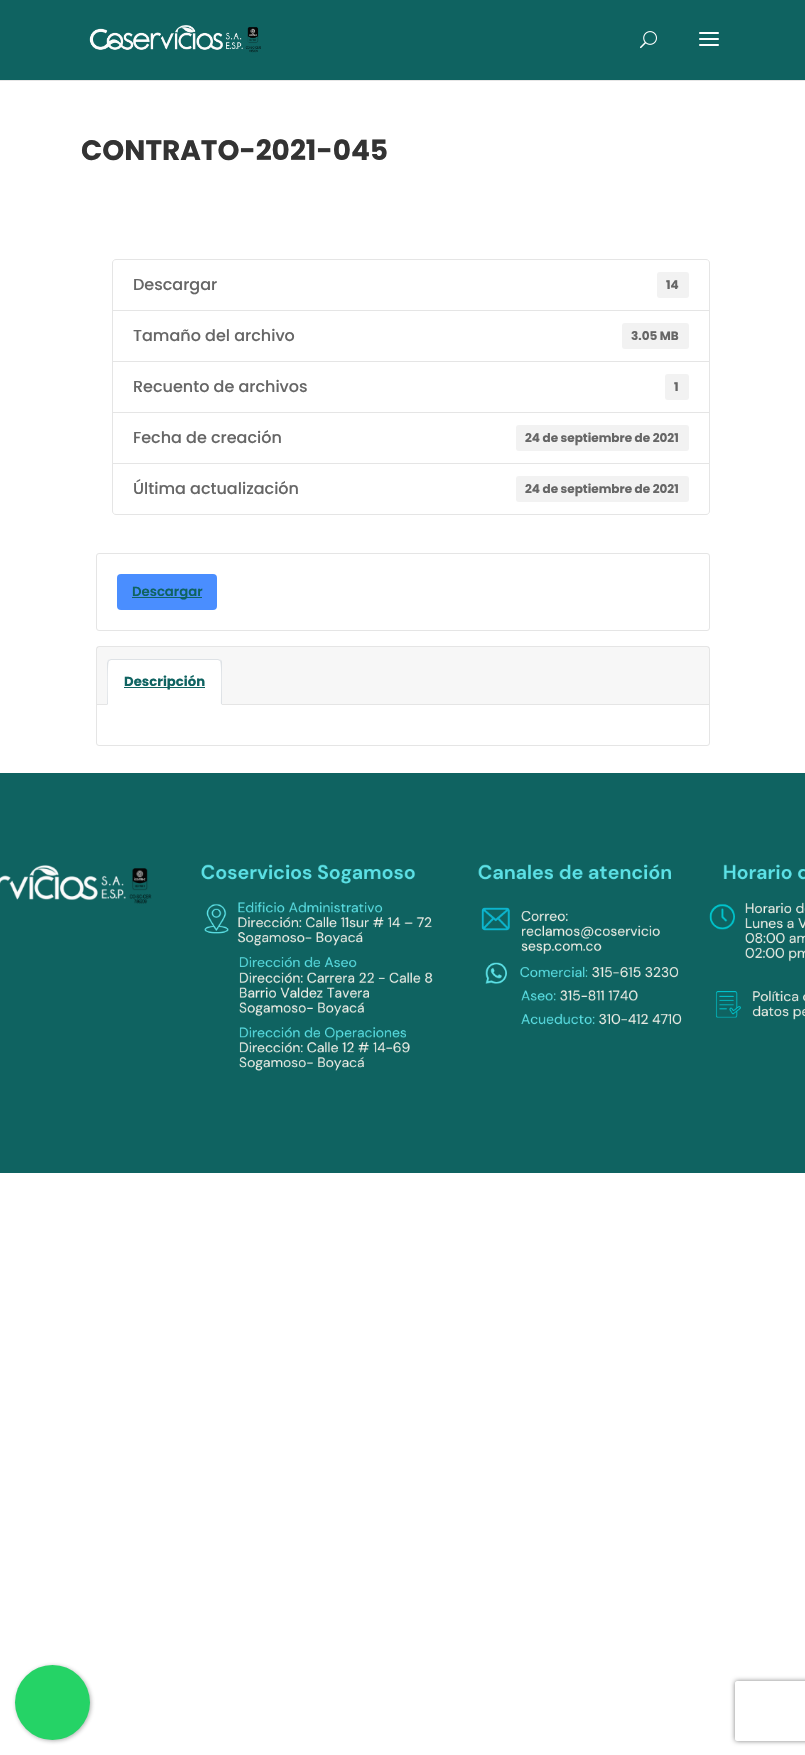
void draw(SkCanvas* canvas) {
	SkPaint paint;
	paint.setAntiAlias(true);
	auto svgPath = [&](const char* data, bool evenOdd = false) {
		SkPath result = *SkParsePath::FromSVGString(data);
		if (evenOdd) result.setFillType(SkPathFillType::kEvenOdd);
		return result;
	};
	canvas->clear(0xffffffff);
	paint.setColor(0xffe6e6e6);
	canvas->drawRect(SkRect::MakeXYWH(0, 80, 805, 1), paint);
	paint.setColor(0xff0f6361);
	canvas->drawRect(SkRect::MakeXYWH(0, 0, 805, 80), paint);
	canvas->drawImageRect(SkImages::DeferredFromEncodedData(SkData::MakeFromFileName("img1.png")), SkRect::MakeXYWH(89, 25, 172, 28), SkSamplingOptions());
	canvas->drawImageRect(SkImages::DeferredFromEncodedData(SkData::MakeFromFileName("img2.png")), SkRect::MakeXYWH(640, 31, 17, 18), SkSamplingOptions());
	canvas->drawImageRect(SkImages::DeferredFromEncodedData(SkData::MakeFromFileName("img3.png")), SkRect::MakeXYWH(699, 32, 20, 14), SkSamplingOptions());
	SkFont f1(fontMgr->matchFamilyStyle("Poppins", SkFontStyle::Bold()), 28);
	f1.setSubpixel(true);
	paint.setColor(0xff333333);
	canvas->drawString("CONTRATO-2021-045", 81, 160, f1, paint);
	paint.setStroke(true);
	paint.setStrokeWidth(1);
	paint.setColor(0xffe5e5e5);
	canvas->drawPath(svgPath("M116 259.5H706C708 259.5 709.5 261 709.5 263V310.5H112.5V263C112.5 261 114 259.5 116 259.5Z"), paint);
	SkFont f2(fontMgr->matchFamilyStyle("Poppins", SkFontStyle(500, SkFontStyle::kNormal_Width, SkFontStyle::kUpright_Slant)), 16);
	f2.setSubpixel(true);
	paint.setStroke(false);
	paint.setColor(0xff666666);
	canvas->drawString("Descargar", 133, 290, f2, paint);
	paint.setColor(0xfff2f2f2);
	canvas->drawRoundRect(SkRect::MakeXYWH(657, 272, 32, 26), 3, 3, paint);
	SkFont f3(fontMgr->matchFamilyStyle("Poppins", SkFontStyle::Bold()), 12);
	f3.setSubpixel(true);
	paint.setColor(0xff666666);
	canvas->drawString("14", 666, 289, f3, paint);
	paint.setStroke(true);
	paint.setColor(0xffe5e5e5);
	canvas->drawRect(SkRect::MakeXYWH(112.5, 310.5, 597, 51), paint);
	paint.setStroke(false);
	paint.setColor(0xff666666);
	canvas->drawString("Tamaño del archivo", 133, 341, f2, paint);
	paint.setColor(0xfff2f2f2);
	canvas->drawRoundRect(SkRect::MakeXYWH(622, 323, 67, 26), 3, 3, paint);
	paint.setColor(0xff666666);
	canvas->drawString("3.05 MB", 631, 340, f3, paint);
	paint.setStroke(true);
	paint.setColor(0xffe5e5e5);
	canvas->drawRect(SkRect::MakeXYWH(112.5, 361.5, 597, 51), paint);
	paint.setStroke(false);
	paint.setColor(0xff666666);
	canvas->drawString("Recuento de archivos", 133, 392, f2, paint);
	paint.setColor(0xfff2f2f2);
	canvas->drawRoundRect(SkRect::MakeXYWH(665, 374, 24, 26), 3, 3, paint);
	paint.setColor(0xff666666);
	canvas->drawString("1", 674, 391, f3, paint);
	paint.setStroke(true);
	paint.setColor(0xffe5e5e5);
	canvas->drawRect(SkRect::MakeXYWH(112.5, 412.5, 597, 51), paint);
	paint.setStroke(false);
	paint.setColor(0xff666666);
	canvas->drawString("Fecha de creación", 133, 443, f2, paint);
	paint.setColor(0xfff2f2f2);
	canvas->drawRoundRect(SkRect::MakeXYWH(516, 425, 173, 26), 3, 3, paint);
	paint.setColor(0xff666666);
	canvas->drawString("24 de septiembre de 2021", 525, 442, f3, paint);
	paint.setColor(0xffffffff);
	canvas->drawPath(svgPath("M112.5 463.5H709.5V511C709.5 513 708 514.5 706 514.5H116C114 514.5 112.5 513 112.5 511Z"), paint);
	paint.setStroke(true);
	paint.setColor(0xffe5e5e5);
	canvas->drawPath(svgPath("M112.5 463.5H709.5V511C709.5 513 708 514.5 706 514.5H116C114 514.5 112.5 513 112.5 511Z"), paint);
	paint.setStroke(false);
	paint.setColor(0xff666666);
	canvas->drawString("Última actualización", 133, 494, f2, paint);
	paint.setColor(0xfff2f2f2);
	canvas->drawRoundRect(SkRect::MakeXYWH(516, 476, 173, 26), 3, 3, paint);
	paint.setColor(0xff666666);
	canvas->drawString("24 de septiembre de 2021", 525, 493, f3, paint);
	paint.setStroke(true);
	paint.setColor(0xffe5e5e5);
	canvas->drawRoundRect(SkRect::MakeXYWH(96.5, 553.5, 613, 77), 2.5, 2.5, paint);
	paint.setStroke(false);
	paint.setColor(0xff4a8eff);
	canvas->drawRoundRect(SkRect::MakeXYWH(117, 574, 100, 36), 4, 4, paint);
	paint.setColor(0xff0f6361);
	canvas->drawRect(SkRect::MakeXYWH(132, 597, 70, 1), paint);
	SkFont f4(fontMgr->matchFamilyStyle("Poppins", SkFontStyle(600, SkFontStyle::kNormal_Width, SkFontStyle::kUpright_Slant)), 13.25);
	f4.setSubpixel(true);
	canvas->drawString("Descargar", 132, 596, f4, paint);
	paint.setStroke(true);
	paint.setColor(0xffe5e5e5);
	canvas->drawRoundRect(SkRect::MakeXYWH(96.5, 646.5, 613, 99), 2.5, 2.5, paint);
	paint.setStroke(false);
	paint.setColor(0x08000000);
	canvas->drawRect(SkRect::MakeXYWH(97, 647, 612, 57), paint);
	paint.setColor(0xffe5e5e5);
	canvas->drawRect(SkRect::MakeXYWH(97, 704, 612, 1), paint);
	paint.setColor(0xffffffff);
	canvas->drawPath(svgPath("M111 659H218C220 659 222 661 222 663V705H107V663C107 661 109 659 111 659Z"), paint);
	paint.setColor(0xffdee2e6);
	canvas->drawPath(svgPath("M111 659L108 660L109 661L111 660H218L220 661L221 660L218 659Z"), paint);
	canvas->drawPath(svgPath("M222 705V663C222 662 222 661 221 660L220 661C222 663 221 699 221 704Z"), paint);
	paint.setColor(0xffffffff);
	canvas->drawPath(svgPath("M222 705L221 704H108L107 705Z"), paint);
	paint.setColor(0xffdee2e6);
	canvas->drawPath(svgPath("M107 705L108 704C108 699 107 663 109 661L108 660L107 663Z"), paint);
	paint.setColor(0xff0f6361);
	canvas->drawRect(SkRect::MakeXYWH(124, 687, 81, 1), paint);
	SkFont f5(fontMgr->matchFamilyStyle("Poppins", SkFontStyle::Bold()), 13.25);
	f5.setSubpixel(true);
	canvas->drawString("Descripción", 124, 686, f5, paint);
	canvas->drawImageRect(SkImages::DeferredFromEncodedData(SkData::MakeFromFileName("img4.png")), SkRect::MakeXYWH(0, 773, 805, 400), SkSamplingOptions());
	paint.setColor(0x663c3c3c);
	paint.setMaskFilter(SkMaskFilter::MakeBlur(kNormal_SkBlurStyle, 2));
	canvas->drawRoundRect(SkRect::MakeXYWH(16, 1666, 75, 75), 37.5, 37.5, paint);
	paint.setMaskFilter(nullptr);
	paint.setColor(0xff25d366);
	canvas->drawCircle(52.5, 1702.5, 37.5, paint);
	canvas->save();
	canvas->clipPath(svgPath("M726 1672H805V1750H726ZM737 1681H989C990 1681 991 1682 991 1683V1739C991 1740 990 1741 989 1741H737C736 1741 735 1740 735 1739V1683C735 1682 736 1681 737 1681Z", true), true);
	paint.setColor(0xff808080);
	paint.setMaskFilter(SkMaskFilter::MakeBlur(kNormal_SkBlurStyle, 2.5));
	canvas->drawRoundRect(SkRect::MakeXYWH(735, 1681, 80, 60), 2, 2, paint);
	paint.setMaskFilter(nullptr);
	canvas->restore();
}
